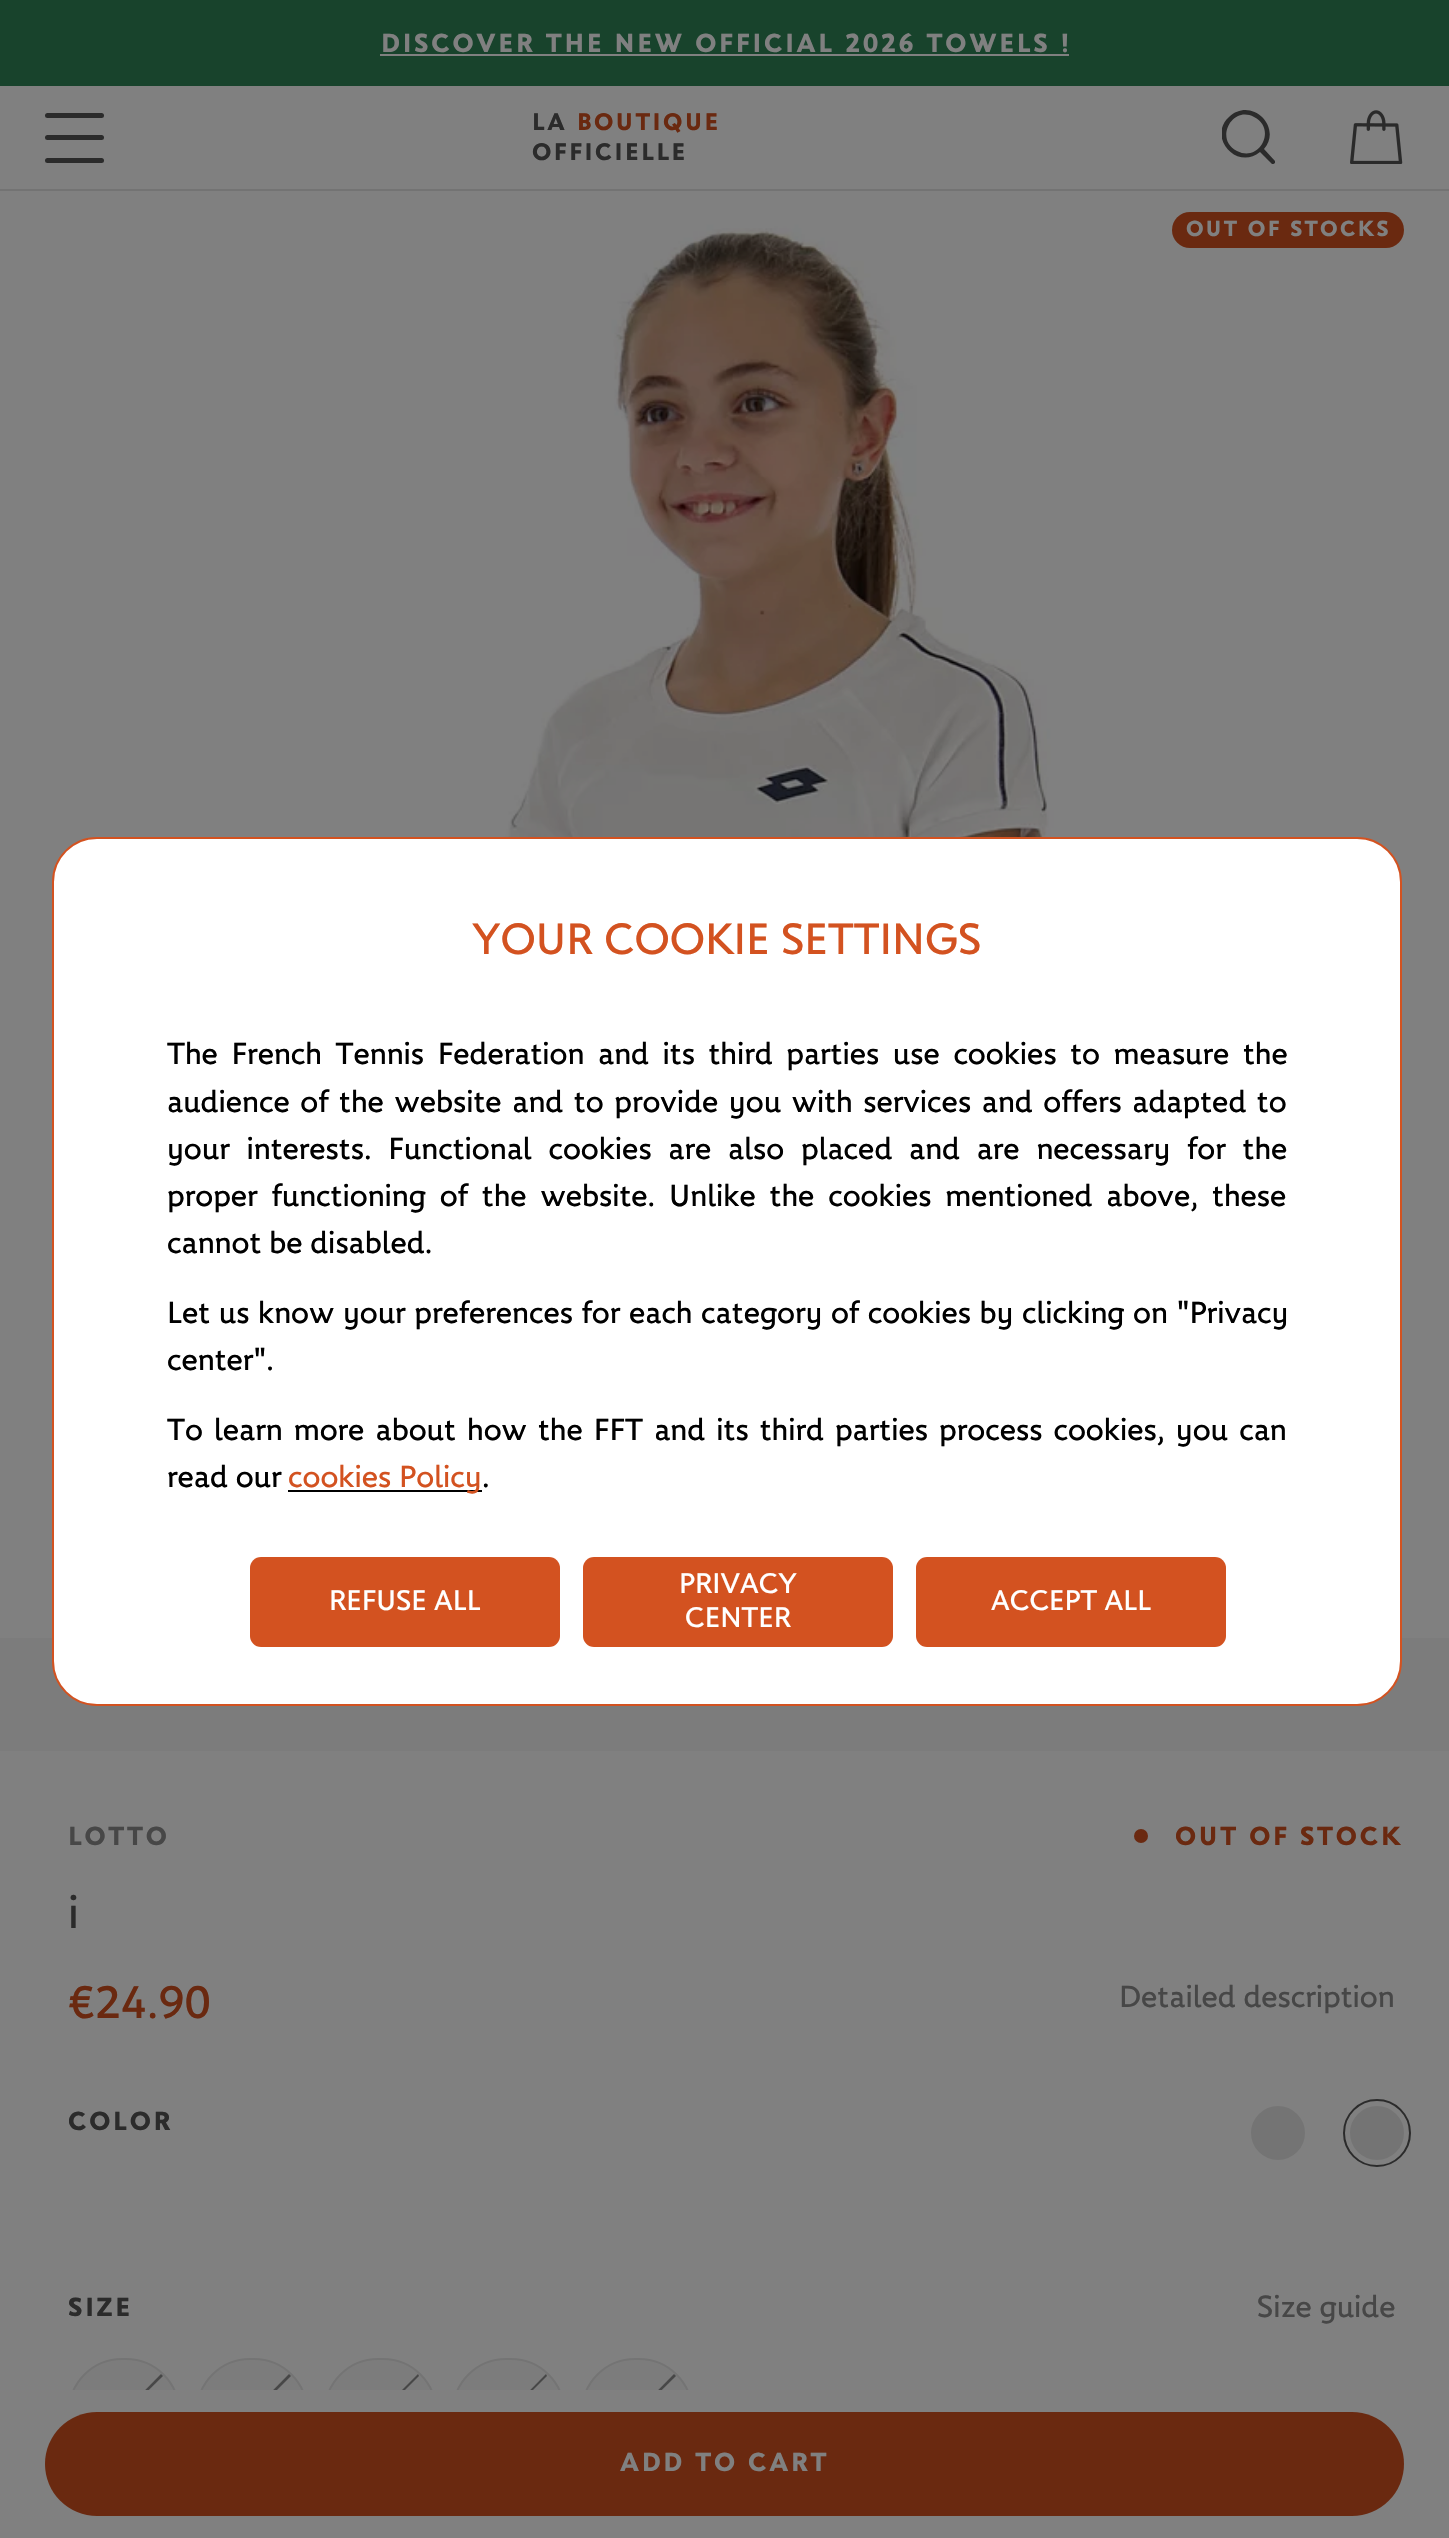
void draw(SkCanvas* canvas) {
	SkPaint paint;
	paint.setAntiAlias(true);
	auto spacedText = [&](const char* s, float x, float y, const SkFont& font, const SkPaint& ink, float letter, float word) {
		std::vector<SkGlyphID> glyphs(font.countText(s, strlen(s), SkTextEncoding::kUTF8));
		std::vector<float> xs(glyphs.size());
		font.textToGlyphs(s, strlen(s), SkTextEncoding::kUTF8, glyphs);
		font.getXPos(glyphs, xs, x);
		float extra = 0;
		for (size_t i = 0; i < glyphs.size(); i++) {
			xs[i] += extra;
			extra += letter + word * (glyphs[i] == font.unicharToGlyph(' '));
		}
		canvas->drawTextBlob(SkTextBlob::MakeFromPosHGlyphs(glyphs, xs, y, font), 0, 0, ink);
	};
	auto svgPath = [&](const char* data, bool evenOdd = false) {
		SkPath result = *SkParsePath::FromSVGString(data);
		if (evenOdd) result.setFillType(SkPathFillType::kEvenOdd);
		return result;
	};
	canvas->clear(0xff808080);
	paint.setColor(0xff18432c);
	canvas->drawRect(SkRect::MakeXYWH(0, 0, 1449, 86), paint);
	SkFont f1(fontMgr->matchFamilyStyle("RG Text", SkFontStyle::Bold()), 27);
	f1.setSubpixel(true);
	paint.setColor(0xff808080);
	spacedText("DISCOVER THE NEW OFFICIAL 2026 TOWELS !", 381, 52, f1, paint, 2.7, 0);
	canvas->drawRect(SkRect::MakeXYWH(380, 54, 689, 2), paint);
	paint.setColor(0xff737373);
	canvas->drawRect(SkRect::MakeXYWH(0, 189, 1449, 2), paint);
	paint.setColor(0xff2b2b2b);
	canvas->drawRoundRect(SkRect::MakeXYWH(45, 113, 59, 5), 2.5, 2.5, paint);
	canvas->drawRoundRect(SkRect::MakeXYWH(45, 135, 59, 5), 2.5, 2.5, paint);
	canvas->drawRoundRect(SkRect::MakeXYWH(45, 158, 59, 5), 2.5, 2.5, paint);
	SkFont f2(fontMgr->matchFamilyStyle("RG Text", SkFontStyle::Bold()), 24.75);
	f2.setSubpixel(true);
	spacedText("LA", 532, 130, f2, paint, 2.5, 0);
	paint.setColor(0xff6a2910);
	spacedText("BOUTIQUE", 577, 130, f2, paint, 2.5, 0);
	paint.setColor(0xff2b2b2b);
	spacedText("OFFICIELLE", 532, 160, f2, paint, 2.5, 0);
	canvas->save();
	canvas->clipRect(SkRect::MakeXYWH(1222, 110, 54, 54));
	canvas->drawPath(svgPath("M1275 161L1264 149C1283 127 1251 96 1229 117C1207 137 1237 171 1260 152L1272 164C1273 164 1274 164 1275 163C1275 162 1275 161 1275 161ZM1237 151C1214 140 1232 105 1254 117C1277 128 1260 163 1237 151Z"), paint);
	canvas->restore();
	canvas->drawImageRect(SkImages::DeferredFromEncodedData(SkData::MakeFromFileName("img1.png")), SkRect::MakeXYWH(1350, 110, 53, 54), SkSamplingOptions());
	paint.setColor(0xff7c7c7c);
	canvas->drawRect(SkRect::MakeXYWH(0, 1638, 1449, 113), paint);
	canvas->drawImageRect(SkImages::DeferredFromEncodedData(SkData::MakeFromFileName("img2.png")), SkRect::MakeXYWH(0, 191, 1449, 1447), SkSamplingOptions());
	paint.setColor(0xff6a2910);
	canvas->drawRoundRect(SkRect::MakeXYWH(1172, 212, 232, 36), 18, 18, paint);
	SkFont f3(fontMgr->matchFamilyStyle("RG Text", SkFontStyle::Bold()), 22.5);
	f3.setSubpixel(true);
	paint.setColor(0xff808080);
	spacedText("OUT OF STOCKS", 1186, 236, f3, paint, 2.25, 0);
	paint.setColor(0xff474747);
	spacedText("LOTTO", 68, 1845, f1, paint, 2.7, 0);
	paint.setColor(0xff6a2910);
	canvas->drawCircle(1141, 1836, 7, paint);
	spacedText("OUT OF STOCK", 1175, 1845, f1, paint, 2.7, 0);
	SkFont f4(fontMgr->matchFamilyStyle("RG Text", SkFontStyle::Normal()), 47);
	f4.setSubpixel(true);
	paint.setColor(0xff2b2b2b);
	canvas->drawString("i", 68, 1928, f4, paint);
	paint.setColor(0xff6a2910);
	canvas->drawString("€24.90", 68, 2018, f4, paint);
	SkFont f5(fontMgr->matchFamilyStyle("RG Text", SkFontStyle::Normal()), 31.5);
	f5.setSubpixel(true);
	paint.setColor(0xff474747);
	canvas->drawString("Detailed description", 1119, 2007, f5, paint);
	paint.setColor(0xff2b2b2b);
	spacedText("COLOR", 68, 2130, f1, paint, 2.7, 0);
	paint.setColor(0xff747474);
	canvas->drawCircle(1278, 2133, 26, paint);
	paint.setStroke(true);
	paint.setStrokeWidth(2);
	canvas->drawCircle(1278, 2133, 26, paint);
	paint.setColor(0xff2b2b2b);
	canvas->drawCircle(1377, 2133, 33, paint);
	paint.setStroke(false);
	paint.setColor(0xff747474);
	canvas->drawCircle(1377, 2133, 26, paint);
	paint.setStroke(true);
	canvas->drawCircle(1377, 2133, 26, paint);
	paint.setStroke(false);
	paint.setColor(0xff2b2b2b);
	spacedText("SIZE", 68, 2316, f1, paint, 2.7, 0);
	paint.setColor(0xff474747);
	canvas->drawString("Size guide", 1257, 2317, f5, paint);
	paint.setColor(0xff7c7c7c);
	canvas->drawRoundRect(SkRect::MakeXYWH(69, 2359, 110, 106), 53, 53, paint);
	paint.setStroke(true);
	paint.setColor(0xff747474);
	canvas->drawRoundRect(SkRect::MakeXYWH(69, 2359, 110, 106), 53, 53, paint);
	paint.setStroke(false);
	paint.setColor(0xff474747);
	canvas->drawPath(svgPath("M87 2451L86 2450L161 2374L163 2376Z"), paint);
	paint.setColor(0xff7c7c7c);
	canvas->drawRoundRect(SkRect::MakeXYWH(197, 2359, 110, 106), 53, 53, paint);
	paint.setStroke(true);
	paint.setColor(0xff747474);
	canvas->drawRoundRect(SkRect::MakeXYWH(197, 2359, 110, 106), 53, 53, paint);
	paint.setStroke(false);
	paint.setColor(0xff474747);
	canvas->drawPath(svgPath("M216 2451L214 2450L289 2374L291 2376Z"), paint);
	paint.setColor(0xff7c7c7c);
	canvas->drawRoundRect(SkRect::MakeXYWH(325, 2359, 111, 106), 53, 53, paint);
	paint.setStroke(true);
	paint.setColor(0xff747474);
	canvas->drawRoundRect(SkRect::MakeXYWH(325, 2359, 111, 106), 53, 53, paint);
	paint.setStroke(false);
	paint.setColor(0xff474747);
	canvas->drawPath(svgPath("M344 2451L342 2450L418 2374L419 2376Z"), paint);
	paint.setColor(0xff7c7c7c);
	canvas->drawRoundRect(SkRect::MakeXYWH(453, 2359, 111, 106), 53, 53, paint);
	paint.setStroke(true);
	paint.setColor(0xff747474);
	canvas->drawRoundRect(SkRect::MakeXYWH(453, 2359, 111, 106), 53, 53, paint);
	paint.setStroke(false);
	paint.setColor(0xff474747);
	canvas->drawPath(svgPath("M472 2451L471 2450L546 2374L547 2376Z"), paint);
	paint.setColor(0xff7c7c7c);
	canvas->drawRoundRect(SkRect::MakeXYWH(582, 2359, 110, 106), 53, 53, paint);
	paint.setStroke(true);
	paint.setColor(0xff747474);
	canvas->drawRoundRect(SkRect::MakeXYWH(582, 2359, 110, 106), 53, 53, paint);
	paint.setStroke(false);
	paint.setColor(0xff474747);
	canvas->drawPath(svgPath("M600 2451L599 2450L674 2374L676 2376Z"), paint);
	paint.setColor(0xff808080);
	canvas->drawRect(SkRect::MakeXYWH(68, 2390, 625, 76), paint);
	paint.setColor(0xff6a2910);
	canvas->drawRoundRect(SkRect::MakeXYWH(45, 2412, 1359, 104), 52, 52, paint);
	paint.setColor(0xff808080);
	spacedText("ADD TO CART", 620, 2471, f1, paint, 2.7, 0);
	paint.setColor(0xffffffff);
	canvas->drawRoundRect(SkRect::MakeXYWH(53, 838, 1348, 867), 44, 44, paint);
	paint.setStroke(true);
	paint.setColor(0xffd35220);
	canvas->drawRoundRect(SkRect::MakeXYWH(53, 838, 1348, 867), 44, 44, paint);
	SkFont f6(fontMgr->matchFamilyStyle("RG Text", SkFontStyle::Normal()), 45);
	f6.setSubpixel(true);
	paint.setStroke(false);
	canvas->drawString("YOUR COOKIE SETTINGS", 472, 954, f6, paint);
	paint.setColor(0xff000000);
	spacedText("The French Tennis Federation and its third parties use cookies to measure the", 167, 1064, f5, paint, 0, 5.75);
	spacedText("audience of the website and to provide you with services and offers adapted to", 167, 1112, f5, paint, 0, 2.75);
	spacedText("your interests. Functional cookies are also placed and are necessary for the", 167, 1159, f5, paint, 0, 8.9);
	spacedText("proper functioning of the website. Unlike the cookies mentioned above, these", 167, 1206, f5, paint, 0, 6);
	canvas->drawString("cannot be disabled.", 167, 1253, f5, paint);
	spacedText("Let us know your preferences for each category of cookies by clicking on \"Privacy", 167, 1323, f5, paint, 0, 0.75);
	canvas->drawString("center\".", 167, 1370, f5, paint);
	spacedText("To learn more about how the FFT and its third parties process cookies, you can", 167, 1440, f5, paint, 0, 3.25);
	canvas->drawString("read our", 167, 1487, f5, paint);
	canvas->drawRect(SkRect::MakeXYWH(288, 1490, 194, 2), paint);
	paint.setColor(0xffd35220);
	canvas->drawString("cookies Policy", 288, 1487, f5, paint);
	paint.setColor(0xff000000);
	canvas->drawString(".", 482, 1487, f5, paint);
	paint.setColor(0xffd35220);
	canvas->drawRoundRect(SkRect::MakeXYWH(250, 1557, 310, 90), 11, 11, paint);
	SkFont f7(fontMgr->matchFamilyStyle("RG Text", SkFontStyle::Normal()), 29.25);
	f7.setSubpixel(true);
	paint.setColor(0xffffffff);
	canvas->drawString("REFUSE ALL", 329, 1610, f7, paint);
	paint.setColor(0xffd35220);
	canvas->drawRoundRect(SkRect::MakeXYWH(583, 1557, 310, 90), 11, 11, paint);
	paint.setColor(0xffffffff);
	canvas->drawString("PRIVACY", 679, 1593, f7, paint);
	canvas->drawString("CENTER", 685, 1627, f7, paint);
	paint.setColor(0xffd35220);
	canvas->drawRoundRect(SkRect::MakeXYWH(916, 1557, 310, 90), 11, 11, paint);
	paint.setColor(0xffffffff);
	canvas->drawString("ACCEPT ALL", 991, 1610, f7, paint);
}
